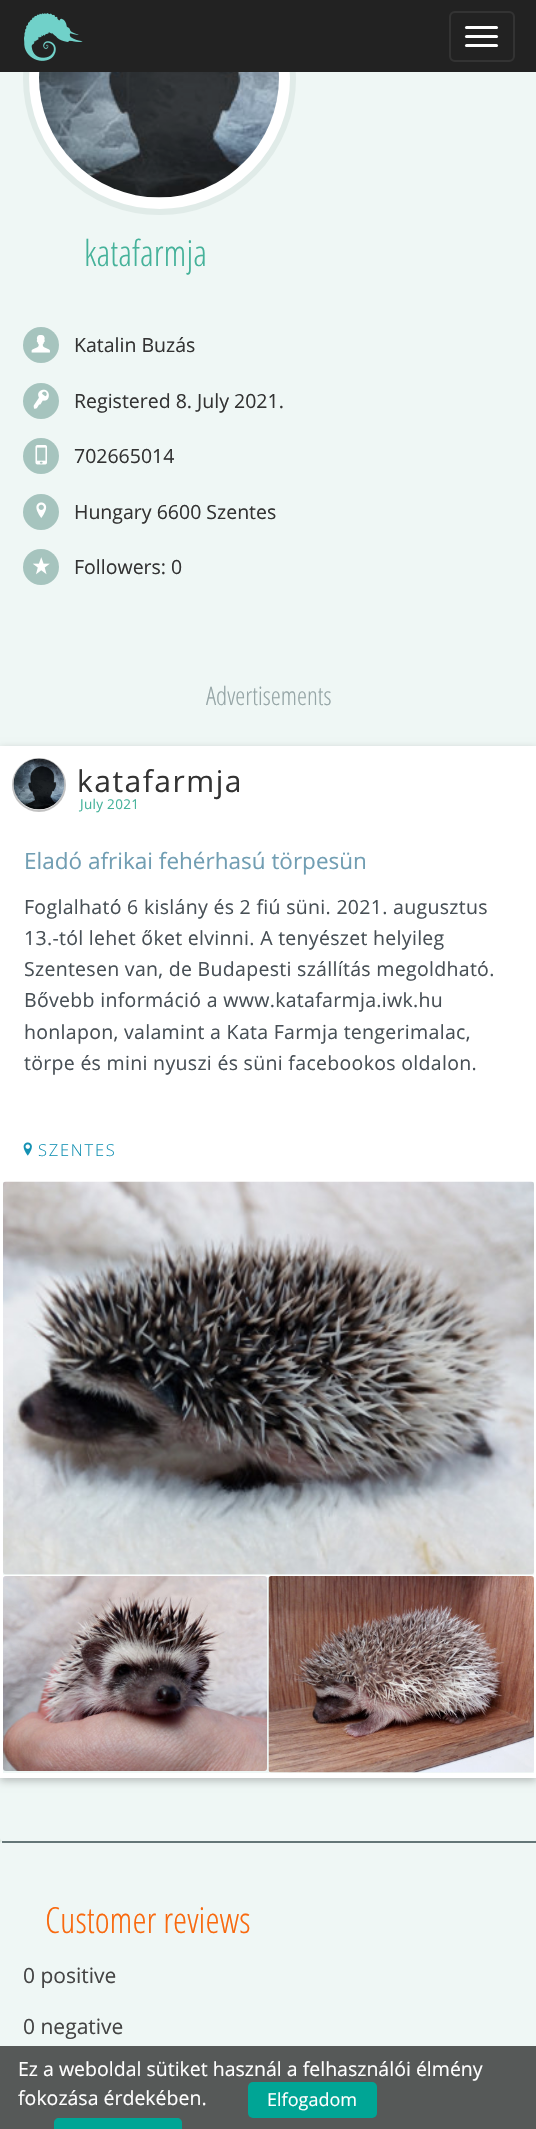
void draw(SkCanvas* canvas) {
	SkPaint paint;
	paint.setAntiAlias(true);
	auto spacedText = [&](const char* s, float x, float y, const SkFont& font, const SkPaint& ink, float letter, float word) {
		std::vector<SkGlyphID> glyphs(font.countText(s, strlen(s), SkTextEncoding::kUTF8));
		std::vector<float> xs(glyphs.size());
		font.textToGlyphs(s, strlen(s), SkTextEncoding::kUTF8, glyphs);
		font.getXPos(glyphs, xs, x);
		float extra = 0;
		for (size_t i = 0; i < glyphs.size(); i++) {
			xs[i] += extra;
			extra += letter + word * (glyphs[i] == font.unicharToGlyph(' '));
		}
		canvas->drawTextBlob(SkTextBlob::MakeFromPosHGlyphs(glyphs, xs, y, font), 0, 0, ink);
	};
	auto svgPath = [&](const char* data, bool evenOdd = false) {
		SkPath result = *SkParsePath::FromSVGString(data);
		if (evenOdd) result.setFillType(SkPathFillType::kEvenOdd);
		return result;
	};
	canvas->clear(0xffdae8e1);
	paint.setColor(0xffeff7f5);
	canvas->drawRoundRect(SkRect::MakeXYWH(0, -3, 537, 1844), 3, 3, paint);
	paint.setColor(0xffffffff);
	canvas->drawCircle(159.5, 78.5, 133.5, paint);
	paint.setStroke(true);
	paint.setStrokeWidth(6);
	paint.setColor(0xffe0ebe8);
	canvas->drawCircle(159.5, 78.5, 133.5, paint);
	paint.setStroke(false);
	paint.setColor(0xff222222);
	canvas->drawRect(SkRect::MakeXYWH(0, 0, 536, 72), paint);
	canvas->drawImageRect(SkImages::DeferredFromEncodedData(SkData::MakeFromFileName("img1.png")), SkRect::MakeXYWH(24, 13, 59, 48), SkSamplingOptions());
	paint.setStroke(true);
	paint.setStrokeWidth(2);
	paint.setColor(0xff333333);
	canvas->drawRoundRect(SkRect::MakeXYWH(450, 12, 64, 49), 5, 5, paint);
	paint.setStroke(false);
	paint.setColor(0xffffffff);
	canvas->drawRoundRect(SkRect::MakeXYWH(465, 26, 33, 3), 1.5, 1.5, paint);
	canvas->drawRoundRect(SkRect::MakeXYWH(465, 35, 33, 3), 1.5, 1.5, paint);
	canvas->drawRoundRect(SkRect::MakeXYWH(465, 44, 33, 3), 1.5, 1.5, paint);
	canvas->drawImageRect(SkImages::DeferredFromEncodedData(SkData::MakeFromFileName("img2.png")), SkRect::MakeXYWH(39, 72, 240, 126), SkSamplingOptions());
	SkFont f1(fontMgr->matchFamilyStyle("Open Sans", SkFontStyle(300, SkFontStyle::kNormal_Width, SkFontStyle::kUpright_Slant)), 36);
	f1.setSubpixel(true);
	paint.setColor(0xff45b29a);
	canvas->drawString("katafarmja", 84, 266, f1, paint);
	paint.setColor(0xffa6c4be);
	canvas->drawCircle(41, 345, 18, paint);
	canvas->drawImageRect(SkImages::DeferredFromEncodedData(SkData::MakeFromFileName("img3.png")), SkRect::MakeXYWH(31, 335, 19, 18), SkSamplingOptions());
	SkFont f2(fontMgr->matchFamilyStyle("Open Sans", SkFontStyle::Normal()), 19.5);
	f2.setSubpixel(true);
	paint.setColor(0xff333333);
	canvas->drawString("Katalin Buzás", 74, 352, f2, paint);
	paint.setColor(0xffa6c4be);
	canvas->drawCircle(41, 401, 18, paint);
	canvas->drawImageRect(SkImages::DeferredFromEncodedData(SkData::MakeFromFileName("img4.png")), SkRect::MakeXYWH(33, 389, 16, 20), SkSamplingOptions());
	paint.setColor(0xff333333);
	canvas->drawString("Registered 8. July 2021.", 74, 408, f2, paint);
	paint.setColor(0xffa6c4be);
	canvas->drawCircle(41, 456, 18, paint);
	canvas->drawImageRect(SkImages::DeferredFromEncodedData(SkData::MakeFromFileName("img5.png")), SkRect::MakeXYWH(35, 445, 12, 20), SkSamplingOptions());
	paint.setColor(0xff333333);
	canvas->drawString("702665014", 74, 463, f2, paint);
	paint.setColor(0xffa6c4be);
	canvas->drawCircle(41, 512, 18, paint);
	canvas->drawImageRect(SkImages::DeferredFromEncodedData(SkData::MakeFromFileName("img6.png")), SkRect::MakeXYWH(36, 502, 11, 16), SkSamplingOptions());
	paint.setColor(0xff333333);
	canvas->drawString("Hungary 6600 Szentes", 74, 519, f2, paint);
	paint.setColor(0xffa6c4be);
	canvas->drawCircle(41, 567, 18, paint);
	canvas->drawImageRect(SkImages::DeferredFromEncodedData(SkData::MakeFromFileName("img7.png")), SkRect::MakeXYWH(33, 557, 17, 18), SkSamplingOptions());
	paint.setColor(0xff333333);
	canvas->drawString("Followers: 0", 74, 574, f2, paint);
	SkFont f3(fontMgr->matchFamilyStyle("Open Sans", SkFontStyle(300, SkFontStyle::kNormal_Width, SkFontStyle::kUpright_Slant)), 25.5);
	f3.setSubpixel(true);
	paint.setColor(0xff95a5a6);
	canvas->drawString("Advertisements", 206, 705, f3, paint);
	paint.setColor(0x3d000000);
	paint.setMaskFilter(SkMaskFilter::MakeBlur(kNormal_SkBlurStyle, 4));
	canvas->drawRect(SkRect::MakeXYWH(0, 749, 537, 1032), paint);
	paint.setMaskFilter(nullptr);
	paint.setColor(0xffffffff);
	canvas->drawRect(SkRect::MakeXYWH(0, 746, 536, 1032), paint);
	paint.setStroke(true);
	paint.setColor(0xffc2c2c2);
	canvas->drawCircle(39, 785, 26, paint);
	canvas->drawImageRect(SkImages::DeferredFromEncodedData(SkData::MakeFromFileName("img8.png")), SkRect::MakeXYWH(13, 758, 52, 52), SkSamplingOptions());
	SkFont f4(fontMgr->matchFamilyStyle("Open Sans", SkFontStyle::Normal()), 30);
	f4.setSubpixel(true);
	paint.setStroke(false);
	paint.setColor(0xff333333);
	spacedText("katafarmja", 77, 792, f4, paint, 1.5, 0);
	SkFont f5(fontMgr->matchFamilyStyle("Open Sans", SkFontStyle::Normal()), 13.5);
	f5.setSubpixel(true);
	paint.setColor(0xff45b29a);
	spacedText("July 2021", 80, 809, f5, paint, 0.3, 0);
	SkFont f6(fontMgr->matchFamilyStyle("Open Sans", SkFontStyle::Normal()), 22.5);
	f6.setSubpixel(true);
	paint.setColor(0xff719eb3);
	canvas->drawString("Eladó afrikai fehérhasú törpesün", 24, 869, f6, paint);
	paint.setColor(0xff485056);
	spacedText("Foglalható 6 kislány és 2 fiú süni. 2021. augusztus", 24, 914, f2, paint, 0.3, 0);
	spacedText("13.-tól lehet őket elvinni. A tenyészet helyileg", 24, 945, f2, paint, 0.3, 0);
	spacedText("Szentesen van, de Budapesti szállítás megoldható.", 24, 976, f2, paint, 0.3, 0);
	spacedText("Bővebb információ a www.katafarmja.iwk.hu", 24, 1007, f2, paint, 0.3, 0);
	spacedText("honlapon, valamint a Kata Farmja tengerimalac,", 24, 1039, f2, paint, 0.3, 0);
	spacedText("törpe és mini nyuszi és süni facebookos oldalon.", 24, 1070, f2, paint, 0.3, 0);
	canvas->drawImageRect(SkImages::DeferredFromEncodedData(SkData::MakeFromFileName("img9.png")), SkRect::MakeXYWH(23, 1142, 9, 14), SkSamplingOptions());
	SkFont f7(fontMgr->matchFamilyStyle("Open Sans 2", SkFontStyle(300, SkFontStyle::kNormal_Width, SkFontStyle::kUpright_Slant)), 16.5);
	f7.setSubpixel(true);
	paint.setColor(0xff1491b3);
	spacedText("SZENTES", 38, 1156, f7, paint, 1.75, 0);
	paint.setColor(0xffeff7f5);
	canvas->drawRect(SkRect::MakeXYWH(3, 1182, 531, 393), paint);
	canvas->drawImageRect(SkImages::DeferredFromEncodedData(SkData::MakeFromFileName("img10.png")), SkRect::MakeXYWH(3, 1181, 531, 394), SkSamplingOptions());
	canvas->drawRect(SkRect::MakeXYWH(3, 1577, 531, 196), paint);
	canvas->drawImageRect(SkImages::DeferredFromEncodedData(SkData::MakeFromFileName("img11.png")), SkRect::MakeXYWH(3, 1576, 264, 195), SkSamplingOptions());
	canvas->drawImageRect(SkImages::DeferredFromEncodedData(SkData::MakeFromFileName("img12.png")), SkRect::MakeXYWH(268, 1576, 266, 197), SkSamplingOptions());
	canvas->drawRoundRect(SkRect::MakeXYWH(0, 1841, 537, 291), 3, 3, paint);
	paint.setColor(0xff647677);
	canvas->drawRect(SkRect::MakeXYWH(2, 1841, 534, 2), paint);
	paint.setColor(0xfff9690e);
	canvas->drawString("Customer reviews", 45, 1933, f1, paint);
	SkFont f8(fontMgr->matchFamilyStyle("Open Sans", SkFontStyle::Normal()), 21);
	f8.setSubpixel(true);
	paint.setColor(0xff444444);
	canvas->drawString("0 positive", 23, 1983, f8, paint);
	canvas->drawString("0 negative", 23, 2034, f8, paint);
	paint.setColor(0xff565958);
	canvas->drawRect(SkRect::MakeXYWH(0, 2046, 536, 83), paint);
	paint.setColor(0xffffffff);
	canvas->drawString("Ez a weboldal sütiket használ a felhasználói élmény", 18, 2076, f2, paint);
	canvas->drawString("fokozása érdekében.", 18, 2105, f2, paint);
	paint.setColor(0xff00a595);
	canvas->drawRoundRect(SkRect::MakeXYWH(248, 2082, 129, 36), 5, 5, paint);
	SkFont f9(fontMgr->matchFamilyStyle("Open Sans", SkFontStyle::Normal()), 18);
	f9.setSubpixel(true);
	paint.setColor(0xffffffff);
	canvas->drawString("Elfogadom", 267, 2106, f9, paint);
	paint.setColor(0xff00a595);
	canvas->drawPath(svgPath("M59 2118H177C180 2118 182 2120 182 2123V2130H54V2123C54 2120 56 2118 59 2118Z"), paint);
}
